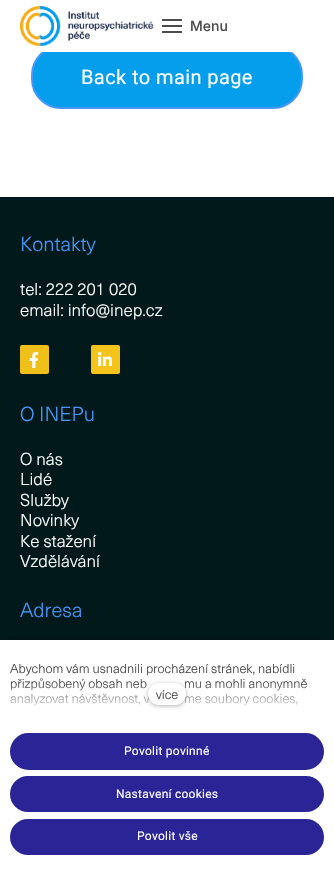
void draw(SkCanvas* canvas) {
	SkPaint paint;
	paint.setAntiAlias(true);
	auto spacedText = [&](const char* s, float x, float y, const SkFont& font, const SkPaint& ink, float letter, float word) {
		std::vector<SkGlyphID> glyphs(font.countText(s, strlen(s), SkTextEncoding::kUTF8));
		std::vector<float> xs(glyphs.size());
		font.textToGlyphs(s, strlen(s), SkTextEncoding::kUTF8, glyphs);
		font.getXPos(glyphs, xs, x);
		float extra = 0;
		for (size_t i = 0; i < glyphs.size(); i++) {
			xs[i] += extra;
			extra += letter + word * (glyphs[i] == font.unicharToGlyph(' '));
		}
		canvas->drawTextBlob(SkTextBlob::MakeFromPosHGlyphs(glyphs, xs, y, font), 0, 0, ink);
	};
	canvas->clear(0xffffffff);
	paint.setColor(0xff049eed);
	canvas->drawRoundRect(SkRect::MakeXYWH(32, 46, 270, 62), 29, 29, paint);
	paint.setStroke(true);
	paint.setStrokeWidth(2);
	paint.setColor(0xff4597f9);
	canvas->drawRoundRect(SkRect::MakeXYWH(32, 46, 270, 62), 29, 29, paint);
	paint.setStroke(false);
	paint.setColor(0xffffffff);
	canvas->drawRect(SkRect::MakeXYWH(41, 45, 252, 7), paint);
	canvas->drawImageRect(SkImages::DeferredFromEncodedData(SkData::MakeFromFileName("img1.png")), SkRect::MakeXYWH(20, 6, 134, 40), SkSamplingOptions());
	paint.setColor(0xff4d4d4d);
	canvas->drawRect(SkRect::MakeXYWH(162, 19, 20, 2), paint);
	canvas->drawRect(SkRect::MakeXYWH(162, 25, 20, 2), paint);
	canvas->drawRect(SkRect::MakeXYWH(162, 31, 20, 2), paint);
	SkFont f1(fontMgr->matchFamilyStyle("Inter", SkFontStyle(500, SkFontStyle::kNormal_Width, SkFontStyle::kUpright_Slant)), 14);
	f1.setSubpixel(true);
	canvas->drawString("Menu", 190, 31, f1, paint);
	SkFont f2(fontMgr->matchFamilyStyle("Roboto", SkFontStyle::Normal()), 20);
	f2.setSubpixel(true);
	paint.setColor(0xffffffff);
	spacedText("Back to main page", 81, 84, f2, paint, 0.4, 0);
	paint.setColor(0xff01191b);
	canvas->drawRect(SkRect::MakeXYWH(0, 197, 334, 443), paint);
	SkFont f3(fontMgr->matchFamilyStyle("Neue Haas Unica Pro", SkFontStyle(300, SkFontStyle::kNormal_Width, SkFontStyle::kUpright_Slant)), 20);
	f3.setSubpixel(true);
	paint.setColor(0xff4597f9);
	canvas->drawString("Kontakty", 20, 251, f3, paint);
	SkFont f4(fontMgr->matchFamilyStyle("Neue Haas Unica Pro", SkFontStyle(300, SkFontStyle::kNormal_Width, SkFontStyle::kUpright_Slant)), 17);
	f4.setSubpixel(true);
	paint.setColor(0xffffffff);
	canvas->drawString("tel: 222 201 020", 20, 295, f4, paint);
	canvas->drawString("email: info@inep.cz", 20, 316, f4, paint);
	paint.setColor(0xffefbf1a);
	canvas->drawRoundRect(SkRect::MakeXYWH(20, 345, 29, 29), 2, 2, paint);
	canvas->drawImageRect(SkImages::DeferredFromEncodedData(SkData::MakeFromFileName("img2.png")), SkRect::MakeXYWH(29, 352, 10, 16), SkSamplingOptions());
	paint.setColor(0xfff5c41a);
	canvas->drawRoundRect(SkRect::MakeXYWH(91, 345, 29, 29), 2, 2, paint);
	canvas->drawImageRect(SkImages::DeferredFromEncodedData(SkData::MakeFromFileName("img3.png")), SkRect::MakeXYWH(98, 352, 14, 14), SkSamplingOptions());
	paint.setColor(0xff4597f9);
	canvas->drawString("O INEPu", 20, 421, f3, paint);
	paint.setColor(0xffffffff);
	canvas->drawString("O nás", 20, 465, f4, paint);
	canvas->drawString("Lidé", 20, 485, f4, paint);
	canvas->drawString("Služby", 20, 506, f4, paint);
	canvas->drawString("Novinky", 20, 526, f4, paint);
	canvas->drawString("Ke stažení", 20, 547, f4, paint);
	canvas->drawString("Vzdělávání", 20, 567, f4, paint);
	paint.setColor(0xff4597f9);
	canvas->drawString("Adresa", 20, 617, f3, paint);
	paint.setColor(0x40000000);
	paint.setMaskFilter(SkMaskFilter::MakeBlur(kNormal_SkBlurStyle, 6));
	canvas->drawRect(SkRect::MakeXYWH(0, 640, 334, 235), paint);
	paint.setMaskFilter(nullptr);
	paint.setColor(0xffffffff);
	canvas->drawRect(SkRect::MakeXYWH(0, 640, 334, 235), paint);
	SkFont f5(fontMgr->matchFamilyStyle("Neue Haas Unica Pro", SkFontStyle(300, SkFontStyle::kNormal_Width, SkFontStyle::kUpright_Slant)), 12.8);
	f5.setSubpixel(true);
	paint.setColor(0xff444444);
	canvas->drawString("Abychom vám usnadnili procházení stránek, nabídli", 10, 673, f5, paint);
	canvas->drawString("přizpůsobený obsah neb", 10, 688, f5, paint);
	canvas->drawString("mu a mohli anonymně", 184, 688, f5, paint);
	canvas->drawString("analyzovat návštěvnost, v", 10, 703, f5, paint);
	canvas->drawString("me soubory cookies,", 184, 703, f5, paint);
	{
		const SkColor colors[] = {0xffffffff, 0x00ffffff};
		const float stops[] = {0, 1};
		const SkPoint ends[] = {{167, 713}, {167, 683}};
		paint.setShader(SkGradientShader::MakeLinear(ends, colors, stops, 2, SkTileMode::kClamp));
		paint.setAlpha(255);
	}
	canvas->drawRect(SkRect::MakeXYWH(10, 684, 297, 22), paint);
	paint.setShader(nullptr);
	paint.setColor(0x4d000000);
	paint.setMaskFilter(SkMaskFilter::MakeBlur(kNormal_SkBlurStyle, 2));
	canvas->drawRoundRect(SkRect::MakeXYWH(148, 684, 38, 22), 11, 11, paint);
	paint.setMaskFilter(nullptr);
	paint.setColor(0xffffffff);
	canvas->drawRoundRect(SkRect::MakeXYWH(148, 683, 38, 22), 11, 11, paint);
	paint.setColor(0xff444444);
	canvas->drawString("více", 156, 699, f5, paint);
	paint.setColor(0xff2a2497);
	canvas->drawRoundRect(SkRect::MakeXYWH(11, 734, 312, 35), 17.5, 17.5, paint);
	paint.setStroke(true);
	canvas->drawRoundRect(SkRect::MakeXYWH(11, 734, 312, 35), 17.5, 17.5, paint);
	SkFont f6(fontMgr->matchFamilyStyle("Roboto", SkFontStyle::Normal()), 12);
	f6.setSubpixel(true);
	paint.setStroke(false);
	paint.setColor(0xffffffff);
	spacedText("Povolit povinné", 124, 755, f6, paint, 0.25, 0);
	paint.setColor(0xff2a2497);
	canvas->drawRoundRect(SkRect::MakeXYWH(11, 777, 312, 34), 17, 17, paint);
	paint.setStroke(true);
	canvas->drawRoundRect(SkRect::MakeXYWH(11, 777, 312, 34), 17, 17, paint);
	paint.setStroke(false);
	paint.setColor(0xffffffff);
	spacedText("Nastavení cookies", 116, 798, f6, paint, 0.25, 0);
	paint.setColor(0xff2a2497);
	canvas->drawRoundRect(SkRect::MakeXYWH(11, 820, 312, 34), 17, 17, paint);
	paint.setStroke(true);
	canvas->drawRoundRect(SkRect::MakeXYWH(11, 820, 312, 34), 17, 17, paint);
	paint.setStroke(false);
	paint.setColor(0xffffffff);
	spacedText("Povolit vše", 137, 840, f6, paint, 0.25, 0);
}
